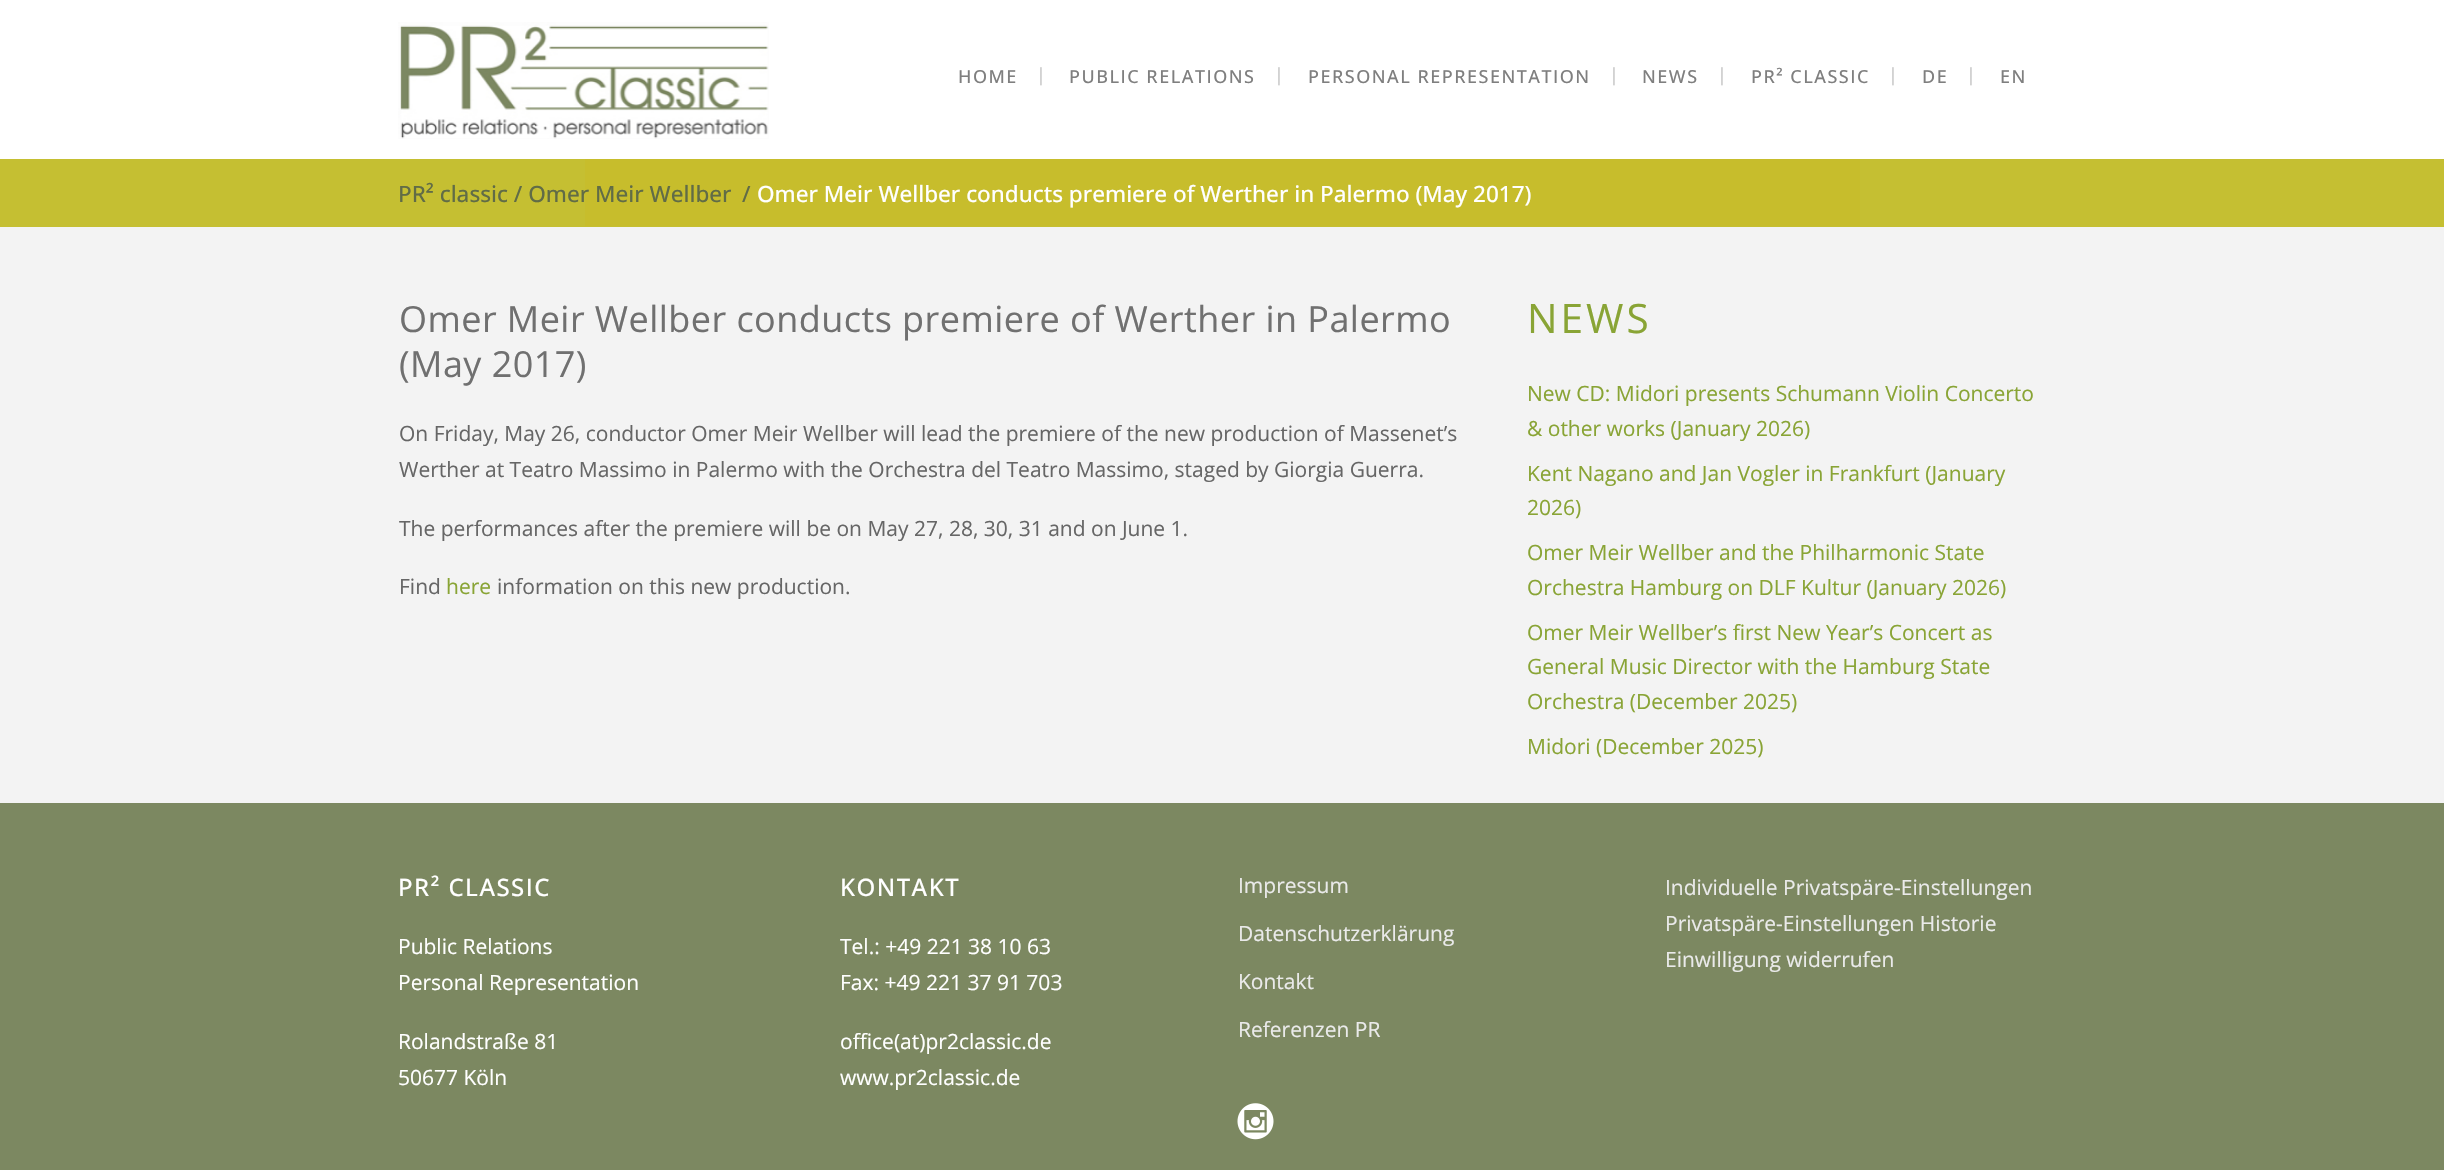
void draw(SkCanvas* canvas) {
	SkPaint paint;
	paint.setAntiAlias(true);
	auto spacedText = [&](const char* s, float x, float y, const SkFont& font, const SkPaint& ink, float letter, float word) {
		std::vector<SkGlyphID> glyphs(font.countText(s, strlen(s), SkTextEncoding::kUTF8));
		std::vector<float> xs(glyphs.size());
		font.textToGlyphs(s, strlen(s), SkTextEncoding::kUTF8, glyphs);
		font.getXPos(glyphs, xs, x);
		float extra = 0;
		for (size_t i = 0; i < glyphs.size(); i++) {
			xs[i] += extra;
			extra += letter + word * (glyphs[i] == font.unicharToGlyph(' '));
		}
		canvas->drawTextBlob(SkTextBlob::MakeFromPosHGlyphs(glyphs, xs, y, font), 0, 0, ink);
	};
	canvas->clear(0xffffffff);
	canvas->drawImageRect(SkImages::DeferredFromEncodedData(SkData::MakeFromFileName("img1.png")), SkRect::MakeXYWH(398, 22, 371, 117), SkSamplingOptions());
	SkFont f1(fontMgr->matchFamilyStyle("Open Sans", SkFontStyle(500, SkFontStyle::kNormal_Width, SkFontStyle::kUpright_Slant)), 18);
	f1.setSubpixel(true);
	paint.setColor(0xff7f7f7f);
	spacedText("HOME", 958, 83, f1, paint, 1.5, 0);
	SkFont f2(fontMgr->matchFamilyStyle("Open Sans", SkFontStyle::Normal()), 18);
	f2.setSubpixel(true);
	paint.setColor(0xffc4c4c4);
	canvas->drawString("|", 1036, 81, f2, paint);
	paint.setColor(0xff7f7f7f);
	spacedText("PUBLIC RELATIONS", 1069, 83, f1, paint, 1.5, 0);
	paint.setColor(0xffc4c4c4);
	canvas->drawString("|", 1274, 81, f2, paint);
	paint.setColor(0xff7f7f7f);
	spacedText("PERSONAL REPRESENTATION", 1308, 83, f1, paint, 1.5, 0);
	paint.setColor(0xffc4c4c4);
	canvas->drawString("|", 1609, 81, f2, paint);
	paint.setColor(0xff7f7f7f);
	spacedText("NEWS", 1642, 83, f1, paint, 1.5, 0);
	paint.setColor(0xffc4c4c4);
	canvas->drawString("|", 1717, 81, f2, paint);
	paint.setColor(0xff7f7f7f);
	spacedText("PR² CLASSIC", 1751, 83, f1, paint, 1.5, 0);
	paint.setColor(0xffc4c4c4);
	canvas->drawString("|", 1888, 81, f2, paint);
	paint.setColor(0xff7f7f7f);
	spacedText("DE", 1922, 83, f1, paint, 1.5, 0);
	paint.setColor(0xffc4c4c4);
	canvas->drawString("|", 1966, 81, f2, paint);
	paint.setColor(0xff7f7f7f);
	spacedText("EN", 2000, 83, f1, paint, 1.5, 0);
	paint.setColor(0xfff3f3f3);
	canvas->drawRect(SkRect::MakeXYWH(0, 227, 2444, 576), paint);
	paint.setColor(0xffc5bf32);
	canvas->drawRect(SkRect::MakeXYWH(0, 159, 2444, 68), paint);
	paint.setColor(0xffc7bd2c);
	canvas->drawRect(SkRect::MakeXYWH(585, 159, 1275, 67), paint);
	SkFont f3(fontMgr->matchFamilyStyle("Open Sans", SkFontStyle(500, SkFontStyle::kNormal_Width, SkFontStyle::kUpright_Slant)), 22.5);
	f3.setSubpixel(true);
	paint.setColor(0xff616c46);
	canvas->drawString("PR² classic / Omer Meir Wellber", 398, 202, f3, paint);
	canvas->drawString("/", 742, 202, f3, paint);
	paint.setColor(0xffffffff);
	canvas->drawString("Omer Meir Wellber conducts premiere of Werther in Palermo (May 2017)", 757, 202, f3, paint);
	SkFont f4(fontMgr->matchFamilyStyle("Open Sans", SkFontStyle::Normal()), 36);
	f4.setSubpixel(true);
	paint.setColor(0xff707070);
	spacedText("Omer Meir Wellber conducts premiere of Werther in Palermo", 399, 332, f4, paint, 0.45, 0);
	spacedText("(May 2017)", 399, 377, f4, paint, 0.45, 0);
	SkFont f5(fontMgr->matchFamilyStyle("Open Sans", SkFontStyle::Normal()), 21);
	f5.setSubpixel(true);
	paint.setColor(0xff666666);
	canvas->drawString("On Friday, May 26, conductor Omer Meir Wellber will lead the premiere of the new production of Massenet’s", 399, 441, f5, paint);
	canvas->drawString("Werther at Teatro Massimo in Palermo with the Orchestra del Teatro Massimo, staged by Giorgia Guerra.", 399, 477, f5, paint);
	canvas->drawString("The performances after the premiere will be on May 27, 28, 30, 31 and on June 1.", 399, 536, f5, paint);
	canvas->drawString("Find", 399, 594, f5, paint);
	paint.setColor(0xff89a435);
	canvas->drawString("here", 446, 594, f5, paint);
	paint.setColor(0xff666666);
	canvas->drawString("information on this new production.", 497, 594, f5, paint);
	SkFont f6(fontMgr->matchFamilyStyle("Open Sans", SkFontStyle::Normal()), 40.5);
	f6.setSubpixel(true);
	paint.setColor(0xff89a435);
	spacedText("NEWS", 1527, 333, f6, paint, 3, 0);
	canvas->drawString("New CD: Midori presents Schumann Violin Concerto", 1527, 401, f5, paint);
	canvas->drawString("& other works (January 2026)", 1527, 436, f5, paint);
	canvas->drawString("Kent Nagano and Jan Vogler in Frankfurt (January", 1527, 481, f5, paint);
	canvas->drawString("2026)", 1527, 515, f5, paint);
	canvas->drawString("Omer Meir Wellber and the Philharmonic State", 1527, 560, f5, paint);
	canvas->drawString("Orchestra Hamburg on DLF Kultur (January 2026)", 1527, 595, f5, paint);
	canvas->drawString("Omer Meir Wellber’s first New Year’s Concert as", 1527, 640, f5, paint);
	canvas->drawString("General Music Director with the Hamburg State", 1527, 674, f5, paint);
	canvas->drawString("Orchestra (December 2025)", 1527, 709, f5, paint);
	canvas->drawString("Midori (December 2025)", 1527, 754, f5, paint);
	paint.setColor(0xff7c8861);
	canvas->drawRect(SkRect::MakeXYWH(0, 803, 2444, 367), paint);
	SkFont f7(fontMgr->matchFamilyStyle("Open Sans", SkFontStyle(500, SkFontStyle::kNormal_Width, SkFontStyle::kUpright_Slant)), 24);
	f7.setSubpixel(true);
	paint.setColor(0xffffffff);
	spacedText("PR² CLASSIC", 398, 896, f7, paint, 1.5, 0);
	canvas->drawString("Public Relations", 398, 954, f5, paint);
	canvas->drawString("Personal Representation", 398, 990, f5, paint);
	canvas->drawString("Rolandstraße 81", 398, 1049, f5, paint);
	canvas->drawString("50677 Köln", 398, 1085, f5, paint);
	spacedText("KONTAKT", 840, 896, f7, paint, 1.5, 0);
	canvas->drawString("Tel.: +49 221 38 10 63", 840, 954, f5, paint);
	canvas->drawString("Fax: +49 221 37 91 703", 840, 990, f5, paint);
	canvas->drawString("office(at)pr2classic.de", 840, 1049, f5, paint);
	canvas->drawString("www.pr2classic.de", 840, 1085, f5, paint);
	paint.setColor(0xffeaeaea);
	canvas->drawString("Impressum", 1238, 893, f5, paint);
	canvas->drawString("Datenschutzerklärung", 1238, 941, f5, paint);
	canvas->drawString("Kontakt", 1238, 989, f5, paint);
	canvas->drawString("Referenzen PR", 1238, 1037, f5, paint);
	canvas->drawImageRect(SkImages::DeferredFromEncodedData(SkData::MakeFromFileName("img2.png")), SkRect::MakeXYWH(1237, 1103, 37, 37), SkSamplingOptions());
	canvas->drawString("Individuelle Privatspäre-Einstellungen", 1665, 895, f5, paint);
	canvas->drawString("Privatspäre-Einstellungen Historie", 1665, 931, f5, paint);
	canvas->drawString("Einwilligung widerrufen", 1665, 967, f5, paint);
}
